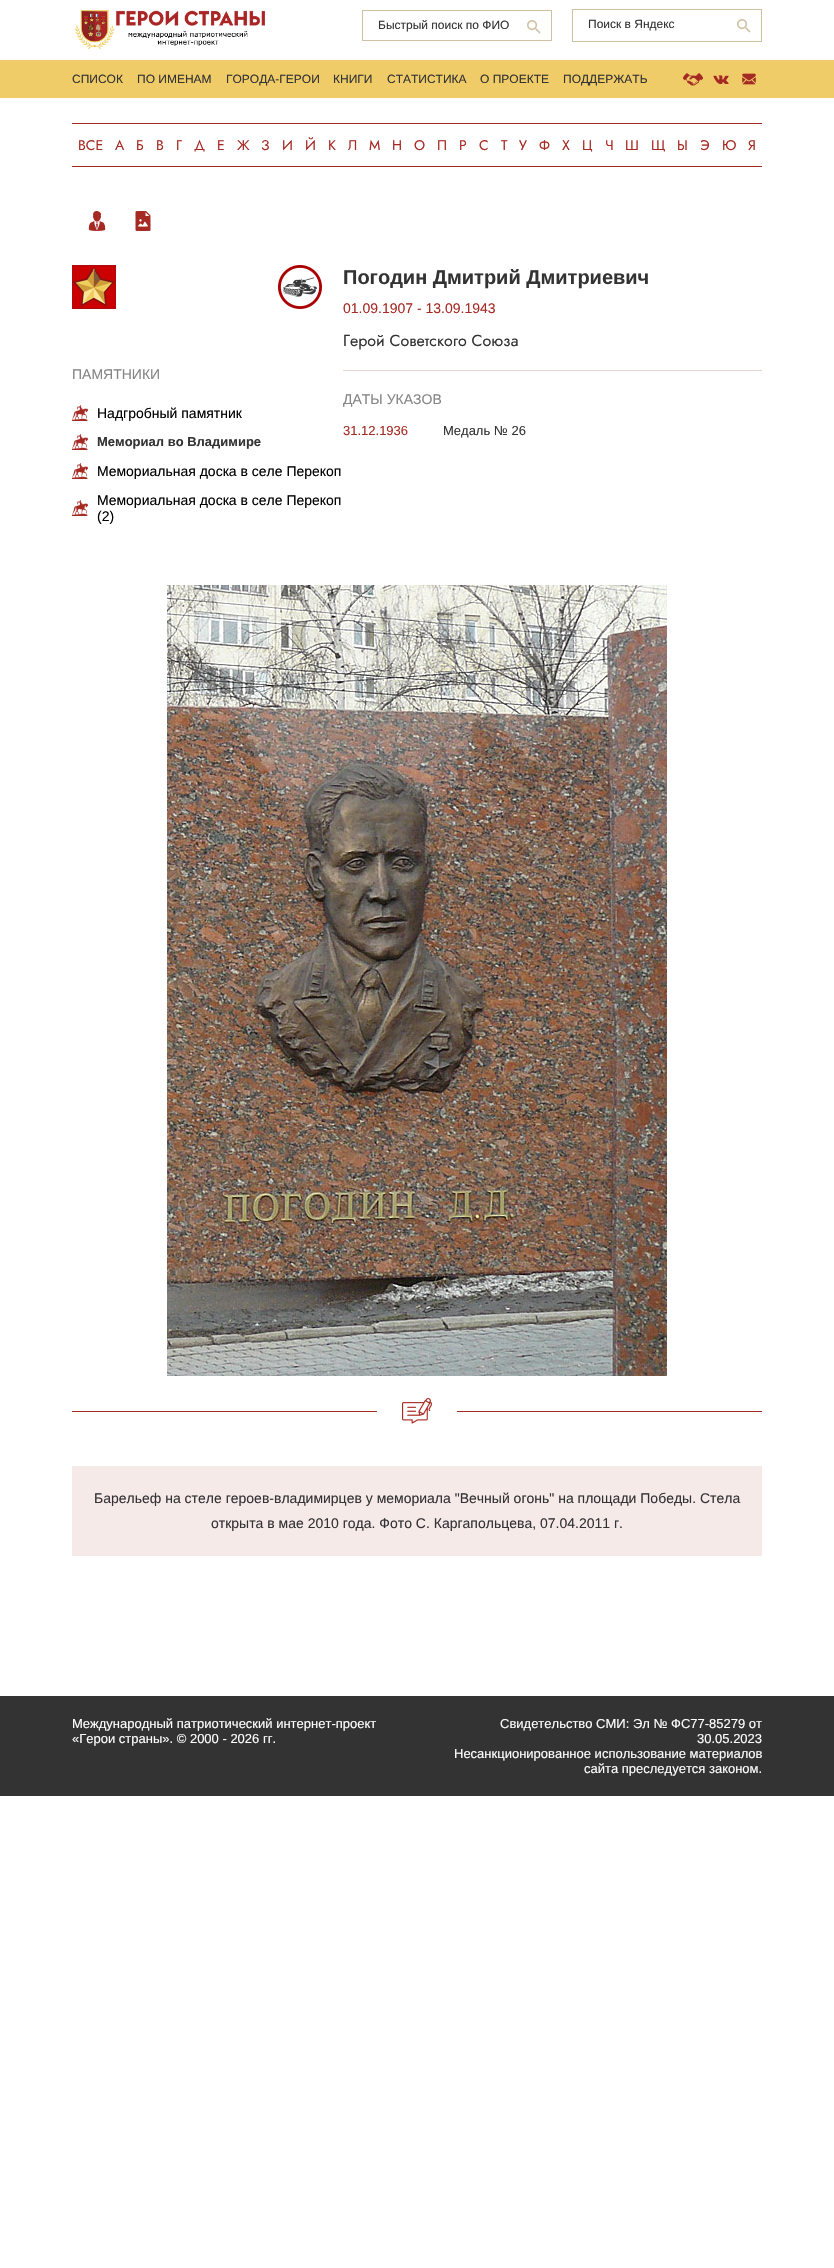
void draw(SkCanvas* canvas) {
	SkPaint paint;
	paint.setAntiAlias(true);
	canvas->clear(0xffffffff);
	canvas->drawImageRect(SkImages::DeferredFromEncodedData(SkData::MakeFromFileName("img1.png")), SkRect::MakeXYWH(74, 10, 191, 39), SkSamplingOptions());
	paint.setStroke(true);
	paint.setStrokeWidth(1);
	paint.setColor(0xffcfc1a2);
	canvas->drawRect(SkRect::MakeXYWH(362.5, 10.5, 189, 30), paint);
	SkFont f1(fontMgr->matchFamilyStyle("Liberation Sans", SkFontStyle::Normal()), 12);
	f1.setSubpixel(true);
	paint.setStroke(false);
	paint.setColor(0xff333333);
	canvas->drawString("Быстрый поиск по ФИО", 378, 29, f1, paint);
	canvas->drawImageRect(SkImages::DeferredFromEncodedData(SkData::MakeFromFileName("img2.png")), SkRect::MakeXYWH(527, 20, 14, 14), SkSamplingOptions());
	paint.setStroke(true);
	paint.setColor(0xffcfc1a2);
	canvas->drawRect(SkRect::MakeXYWH(572.5, 9.5, 189, 32), paint);
	paint.setStroke(false);
	paint.setColor(0xff333333);
	canvas->drawString("Поиск в Яндекс", 588, 28, f1, paint);
	canvas->drawImageRect(SkImages::DeferredFromEncodedData(SkData::MakeFromFileName("img2.png")), SkRect::MakeXYWH(737, 19, 14, 14), SkSamplingOptions());
	paint.setColor(0xffefcc68);
	canvas->drawRect(SkRect::MakeXYWH(0, 60, 834, 38), paint);
	paint.setColor(0xff333333);
	canvas->drawString("СПИСОК", 72, 83, f1, paint);
	canvas->drawString("ПО ИМЕНАМ", 137, 83, f1, paint);
	canvas->drawString("ГОРОДА-ГЕРОИ", 226, 83, f1, paint);
	canvas->drawString("КНИГИ", 333, 83, f1, paint);
	canvas->drawString("СТАТИСТИКА", 387, 83, f1, paint);
	canvas->drawString("О ПРОЕКТЕ", 480, 83, f1, paint);
	canvas->drawString("ПОДДЕРЖАТЬ", 563, 83, f1, paint);
	canvas->drawImageRect(SkImages::DeferredFromEncodedData(SkData::MakeFromFileName("img3.png")), SkRect::MakeXYWH(683, 73, 20, 13), SkSamplingOptions());
	canvas->drawImageRect(SkImages::DeferredFromEncodedData(SkData::MakeFromFileName("img4.png")), SkRect::MakeXYWH(713, 75, 16, 9), SkSamplingOptions());
	canvas->drawImageRect(SkImages::DeferredFromEncodedData(SkData::MakeFromFileName("img5.png")), SkRect::MakeXYWH(742, 73, 14, 12), SkSamplingOptions());
	paint.setColor(0xffa52a23);
	canvas->drawRect(SkRect::MakeXYWH(72, 123, 690, 1), paint);
	canvas->drawRect(SkRect::MakeXYWH(72, 166, 690, 1), paint);
	SkFont f2(fontMgr->matchFamilyStyle("Jost", SkFontStyle::Normal()), 14);
	f2.setSubpixel(true);
	canvas->drawString("ВСЕ", 78, 150, f2, paint);
	canvas->drawString("А", 115, 150, f2, paint);
	canvas->drawString("Б", 136, 150, f2, paint);
	canvas->drawString("В", 156, 150, f2, paint);
	canvas->drawString("Г", 176, 150, f2, paint);
	canvas->drawString("Д", 194, 150, f2, paint);
	canvas->drawString("Е", 217, 150, f2, paint);
	canvas->drawString("Ж", 237, 150, f2, paint);
	canvas->drawString("З", 261, 150, f2, paint);
	canvas->drawString("И", 282, 150, f2, paint);
	canvas->drawString("Й", 305, 150, f2, paint);
	canvas->drawString("К", 328, 150, f2, paint);
	canvas->drawString("Л", 348, 150, f2, paint);
	canvas->drawString("М", 369, 150, f2, paint);
	canvas->drawString("Н", 392, 150, f2, paint);
	canvas->drawString("О", 414, 150, f2, paint);
	canvas->drawString("П", 437, 150, f2, paint);
	canvas->drawString("Р", 459, 150, f2, paint);
	canvas->drawString("С", 479, 150, f2, paint);
	canvas->drawString("Т", 501, 150, f2, paint);
	canvas->drawString("У", 519, 150, f2, paint);
	canvas->drawString("Ф", 539, 150, f2, paint);
	canvas->drawString("Х", 562, 150, f2, paint);
	canvas->drawString("Ц", 582, 150, f2, paint);
	canvas->drawString("Ч", 605, 150, f2, paint);
	canvas->drawString("Ш", 625, 150, f2, paint);
	canvas->drawString("Щ", 651, 150, f2, paint);
	canvas->drawString("Ы", 677, 150, f2, paint);
	canvas->drawString("Э", 700, 150, f2, paint);
	canvas->drawString("Ю", 722, 150, f2, paint);
	canvas->drawString("Я", 748, 150, f2, paint);
	canvas->drawImageRect(SkImages::DeferredFromEncodedData(SkData::MakeFromFileName("img6.png")), SkRect::MakeXYWH(88, 211, 18, 20), SkSamplingOptions());
	canvas->drawImageRect(SkImages::DeferredFromEncodedData(SkData::MakeFromFileName("img7.png")), SkRect::MakeXYWH(135, 211, 16, 20), SkSamplingOptions());
	canvas->drawImageRect(SkImages::DeferredFromEncodedData(SkData::MakeFromFileName("img8.png")), SkRect::MakeXYWH(72, 265, 44, 44), SkSamplingOptions());
	canvas->drawImageRect(SkImages::DeferredFromEncodedData(SkData::MakeFromFileName("img9.png")), SkRect::MakeXYWH(278, 265, 44, 44), SkSamplingOptions());
	SkFont f3(fontMgr->matchFamilyStyle("Liberation Sans", SkFontStyle::Normal()), 14);
	f3.setSubpixel(true);
	paint.setColor(0xff858585);
	canvas->drawString("ПАМЯТНИКИ", 72, 379, f3, paint);
	canvas->drawImageRect(SkImages::DeferredFromEncodedData(SkData::MakeFromFileName("img10.png")), SkRect::MakeXYWH(72, 405, 16, 16), SkSamplingOptions());
	paint.setColor(0xff000000);
	canvas->drawString("Надгробный памятник", 97, 418, f3, paint);
	canvas->drawImageRect(SkImages::DeferredFromEncodedData(SkData::MakeFromFileName("img10.png")), SkRect::MakeXYWH(72, 434, 16, 16), SkSamplingOptions());
	SkFont f4(fontMgr->matchFamilyStyle("Liberation Sans", SkFontStyle::Bold()), 13);
	f4.setSubpixel(true);
	paint.setColor(0xff333333);
	canvas->drawString("Мемориал во Владимире", 97, 446, f4, paint);
	canvas->drawImageRect(SkImages::DeferredFromEncodedData(SkData::MakeFromFileName("img10.png")), SkRect::MakeXYWH(72, 463, 16, 16), SkSamplingOptions());
	paint.setColor(0xff000000);
	canvas->drawString("Мемориальная доска в селе Перекоп", 97, 476, f3, paint);
	canvas->drawImageRect(SkImages::DeferredFromEncodedData(SkData::MakeFromFileName("img10.png")), SkRect::MakeXYWH(72, 500, 16, 16), SkSamplingOptions());
	canvas->drawString("Мемориальная доска в селе Перекоп", 97, 505, f3, paint);
	canvas->drawString("(2)", 97, 521, f3, paint);
	SkFont f5(fontMgr->matchFamilyStyle("Liberation Sans", SkFontStyle::Bold()), 20);
	f5.setSubpixel(true);
	paint.setColor(0xff333333);
	canvas->drawString("Погодин Дмитрий Дмитриевич", 343, 284, f5, paint);
	paint.setColor(0xffa52a23);
	canvas->drawString("01.09.1907 - 13.09.1943", 343, 313, f3, paint);
	paint.setColor(0xffedd4d3);
	canvas->drawRect(SkRect::MakeXYWH(343, 370, 419, 1), paint);
	SkFont f6(fontMgr->matchFamilyStyle("Jost", SkFontStyle::Normal()), 16);
	f6.setSubpixel(true);
	paint.setColor(0xff333333);
	canvas->drawString("Герой Советского Союза", 343, 346, f6, paint);
	paint.setColor(0xff858585);
	canvas->drawString("ДАТЫ УКАЗОВ", 343, 404, f3, paint);
	SkFont f7(fontMgr->matchFamilyStyle("Liberation Sans", SkFontStyle::Normal()), 13);
	f7.setSubpixel(true);
	paint.setColor(0xffa52a23);
	canvas->drawString("31.12.1936", 343, 435, f7, paint);
	paint.setColor(0xff333333);
	canvas->drawString("Медаль № 26", 443, 435, f7, paint);
	canvas->drawImageRect(SkImages::DeferredFromEncodedData(SkData::MakeFromFileName("img11.png")), SkRect::MakeXYWH(167, 585, 500, 791), SkSamplingOptions());
	canvas->drawImageRect(SkImages::DeferredFromEncodedData(SkData::MakeFromFileName("img12.png")), SkRect::MakeXYWH(72, 1398, 690, 26), SkSamplingOptions());
	paint.setColor(0xfff6eae9);
	canvas->drawRect(SkRect::MakeXYWH(72, 1466, 690, 90), paint);
	paint.setColor(0xff333333);
	canvas->drawString("Барельеф на стеле героев-владимирцев у мемориала \"Вечный огонь\" на площади Победы. Стела", 94, 1503, f3, paint);
	canvas->drawString("открыта в мае 2010 года. Фото С. Каргапольцева, 07.04.2011 г.", 211, 1528, f3, paint);
	canvas->drawRect(SkRect::MakeXYWH(0, 1696, 834, 100), paint);
	paint.setColor(0xffffffff);
	canvas->drawString("Международный патриотический интернет-проект", 72, 1728, f7, paint);
	canvas->drawString("«Герои страны». © 2000 - 2026 гг.", 72, 1743, f7, paint);
	canvas->drawString("Свидетельство СМИ: Эл № ФС77-85279 от", 500, 1728, f7, paint);
	canvas->drawString("30.05.2023", 697, 1743, f7, paint);
	canvas->drawString("Несанкционированное использование материалов", 454, 1758, f7, paint);
	canvas->drawString("сайта преследуется законом.", 584, 1773, f7, paint);
}
